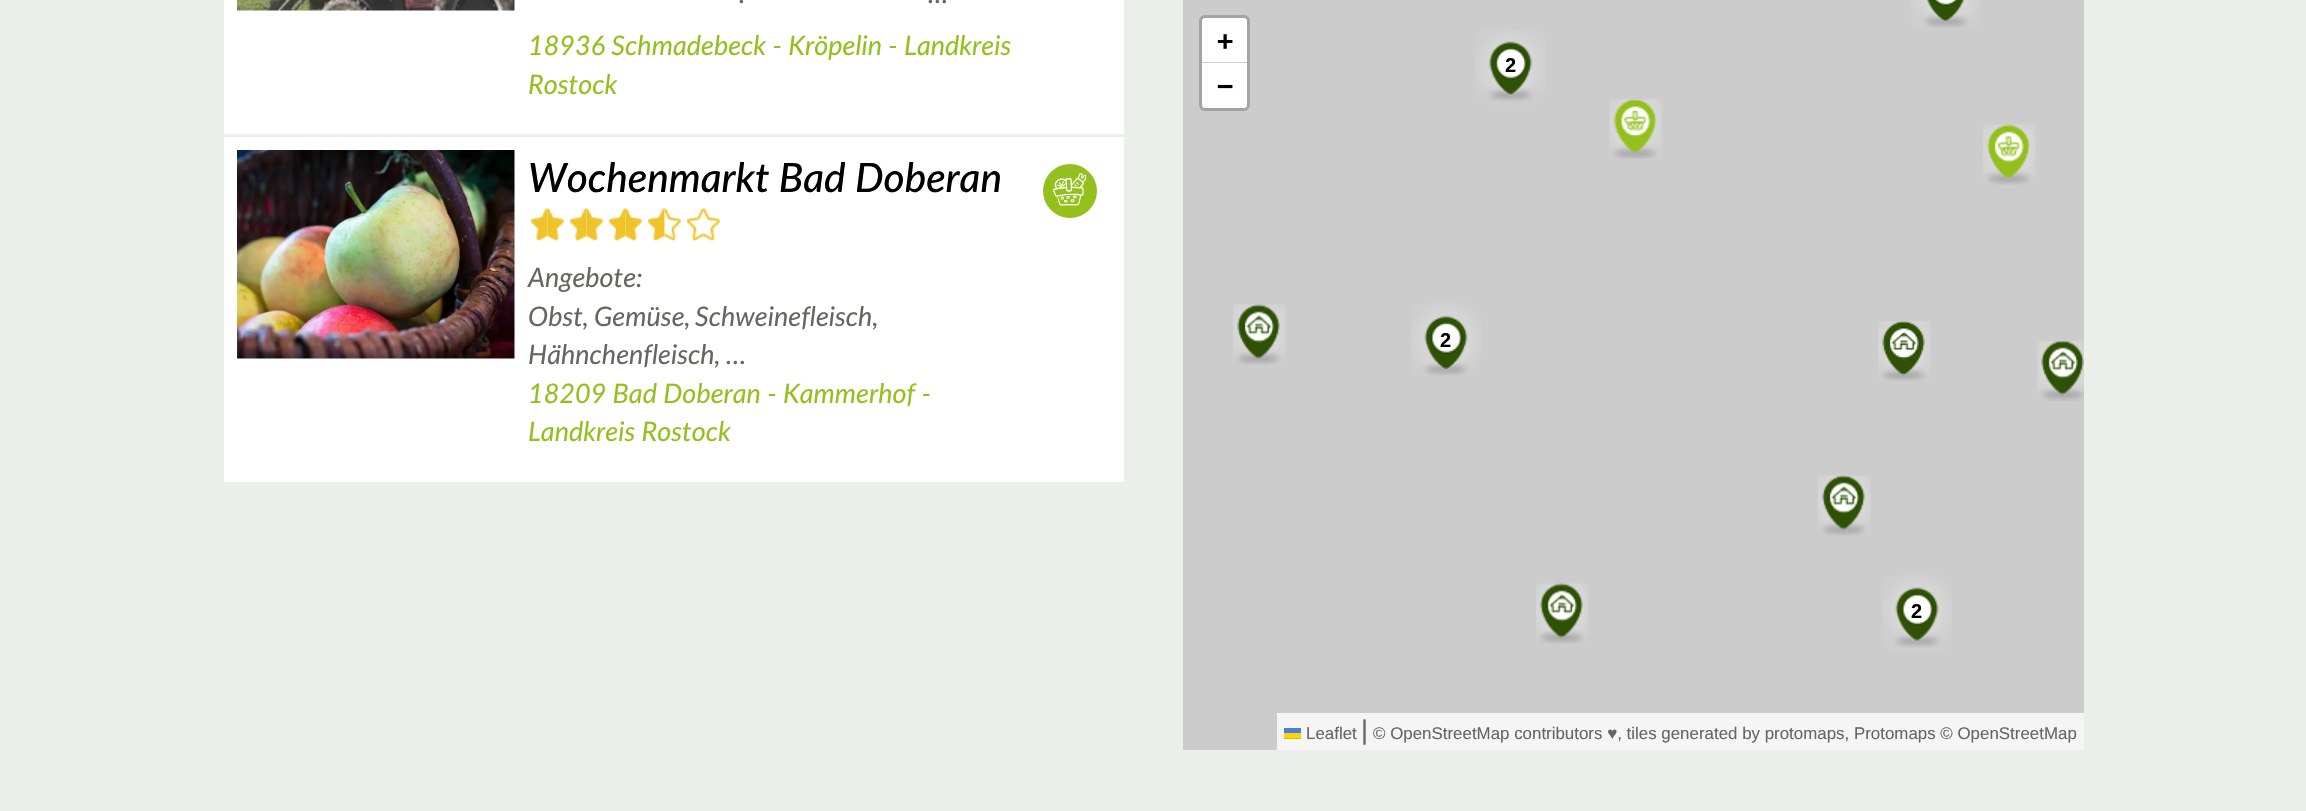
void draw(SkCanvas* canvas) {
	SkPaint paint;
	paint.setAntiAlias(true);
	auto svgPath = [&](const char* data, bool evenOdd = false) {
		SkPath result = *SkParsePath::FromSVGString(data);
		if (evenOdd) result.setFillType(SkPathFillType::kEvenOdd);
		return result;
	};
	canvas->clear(0xffeceee9);
	paint.setColor(0xffffffff);
	canvas->drawRect(SkRect::MakeXYWH(224, 0, 900, 134), paint);
	canvas->drawImageRect(SkImages::DeferredFromEncodedData(SkData::MakeFromFileName("img1.png")), SkRect::MakeXYWH(237, 0, 278, 11), SkSamplingOptions());
	SkFont f1(fontMgr->matchFamilyStyle("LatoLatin", SkFontStyle::Italic()), 27);
	f1.setSubpixel(true);
	paint.setColor(0xff63675e);
	canvas->drawString(".", 739, 3, f1, paint);
	canvas->drawString("…", 928, 3, f1, paint);
	paint.setColor(0xff93c01c);
	canvas->drawString("18936 Schmadebeck - Kröpelin - Landkreis", 528, 55, f1, paint);
	canvas->drawString("Rostock", 528, 94, f1, paint);
	paint.setColor(0xffffffff);
	canvas->drawRect(SkRect::MakeXYWH(224, 137, 900, 345), paint);
	canvas->drawImageRect(SkImages::DeferredFromEncodedData(SkData::MakeFromFileName("img2.png")), SkRect::MakeXYWH(237, 150, 278, 209), SkSamplingOptions());
	SkFont f2(fontMgr->matchFamilyStyle("LatoLatin", SkFontStyle(500, SkFontStyle::kNormal_Width, SkFontStyle::kItalic_Slant)), 40.5);
	f2.setSubpixel(true);
	paint.setColor(0xff000000);
	canvas->drawString("Wochenmarkt Bad Doberan", 528, 192, f2, paint);
	paint.setColor(0xff93c01c);
	canvas->drawCircle(1070, 191, 27, paint);
	canvas->drawImageRect(SkImages::DeferredFromEncodedData(SkData::MakeFromFileName("img3.png")), SkRect::MakeXYWH(1053, 173, 33, 33), SkSamplingOptions());
	canvas->drawImageRect(SkImages::DeferredFromEncodedData(SkData::MakeFromFileName("img4.png")), SkRect::MakeXYWH(531, 208, 17, 33), SkSamplingOptions());
	canvas->drawImageRect(SkImages::DeferredFromEncodedData(SkData::MakeFromFileName("img5.png")), SkRect::MakeXYWH(547, 208, 17, 33), SkSamplingOptions());
	canvas->drawImageRect(SkImages::DeferredFromEncodedData(SkData::MakeFromFileName("img4.png")), SkRect::MakeXYWH(570, 208, 17, 33), SkSamplingOptions());
	canvas->drawImageRect(SkImages::DeferredFromEncodedData(SkData::MakeFromFileName("img5.png")), SkRect::MakeXYWH(586, 208, 17, 33), SkSamplingOptions());
	canvas->drawImageRect(SkImages::DeferredFromEncodedData(SkData::MakeFromFileName("img4.png")), SkRect::MakeXYWH(609, 208, 17, 33), SkSamplingOptions());
	canvas->drawImageRect(SkImages::DeferredFromEncodedData(SkData::MakeFromFileName("img5.png")), SkRect::MakeXYWH(625, 208, 17, 33), SkSamplingOptions());
	canvas->drawImageRect(SkImages::DeferredFromEncodedData(SkData::MakeFromFileName("img4.png")), SkRect::MakeXYWH(648, 208, 17, 33), SkSamplingOptions());
	canvas->drawImageRect(SkImages::DeferredFromEncodedData(SkData::MakeFromFileName("img6.png")), SkRect::MakeXYWH(664, 208, 17, 33), SkSamplingOptions());
	canvas->drawImageRect(SkImages::DeferredFromEncodedData(SkData::MakeFromFileName("img7.png")), SkRect::MakeXYWH(687, 208, 17, 33), SkSamplingOptions());
	canvas->drawImageRect(SkImages::DeferredFromEncodedData(SkData::MakeFromFileName("img8.png")), SkRect::MakeXYWH(703, 208, 17, 33), SkSamplingOptions());
	paint.setColor(0xff63675e);
	canvas->drawString("Angebote:", 528, 287, f1, paint);
	canvas->drawString("Obst,", 528, 326, f1, paint);
	canvas->drawString("Gemüse,", 594, 326, f1, paint);
	canvas->drawString("Schweinefleisch,", 695, 326, f1, paint);
	canvas->drawString("Hähnchenfleisch,", 528, 364, f1, paint);
	canvas->drawString("…", 726, 364, f1, paint);
	paint.setColor(0xff93c01c);
	canvas->drawString("18209 Bad Doberan - Kammerhof -", 528, 403, f1, paint);
	canvas->drawString("Landkreis Rostock", 528, 441, f1, paint);
	paint.setColor(0xffcccccc);
	canvas->drawRect(SkRect::MakeXYWH(1183, 0, 185, 716), paint);
	paint.setStroke(true);
	paint.setStrokeWidth(3);
	paint.setColor(0xffa3a3a3);
	canvas->drawRoundRect(SkRect::MakeXYWH(1200.5, 16.5, 48, 93), 4.5, 4.5, paint);
	paint.setStroke(false);
	paint.setColor(0xffffffff);
	canvas->drawPath(svgPath("M1205 18H1244C1245.5 18 1247 19.5 1247 21V63H1202V21C1202 19.5 1203.5 18 1205 18Z"), paint);
	paint.setColor(0xffcccccc);
	canvas->drawRect(SkRect::MakeXYWH(1202, 62, 45, 1), paint);
	SkFont f3(fontMgr->matchFamilyStyle("DejaVu Sans Mono", SkFontStyle::Bold()), 27);
	f3.setSubpixel(true);
	paint.setColor(0xff000000);
	canvas->drawString("+", 1217, 50, f3, paint);
	paint.setColor(0xffffffff);
	canvas->drawPath(svgPath("M1202 63H1247V105C1247 106.5 1245.5 108 1244 108H1205C1203.5 108 1202 106.5 1202 105Z"), paint);
	paint.setColor(0xff000000);
	canvas->drawString("−", 1217, 95, f3, paint);
	paint.setColor(0xfff5f5f5);
	canvas->drawRect(SkRect::MakeXYWH(1277, 713, 807, 37), paint);
	SkFont f4(fontMgr->matchFamilyStyle("Liberation Sans", SkFontStyle::Normal()), 16.9);
	f4.setSubpixel(true);
	paint.setColor(0xff63675e);
	canvas->drawString("Leaflet", 1306, 739, f4, paint);
	paint.setColor(0xff4c7be1);
	canvas->drawRect(SkRect::MakeXYWH(1284, 728, 17, 5), paint);
	paint.setColor(0xffffd500);
	canvas->drawRect(SkRect::MakeXYWH(1284, 733, 17, 5), paint);
	paint.setColor(0xffe0bc00);
	canvas->drawRect(SkRect::MakeXYWH(1284, 738, 17, 1), paint);
	SkFont f5(fontMgr->matchFamilyStyle("Liberation Sans", SkFontStyle::Normal()), 27);
	f5.setSubpixel(true);
	paint.setColor(0xff63675e);
	canvas->drawString("|", 1361, 739, f5, paint);
	canvas->drawString("© OpenStreetMap contributors ♥, tiles generated by protomaps, Protomaps © OpenStreetMap", 1373, 739, f4, paint);
	paint.setColor(0xffcccccc);
	canvas->drawRect(SkRect::MakeXYWH(1368, 0, 716, 332), paint);
	canvas->drawRect(SkRect::MakeXYWH(1368, 332, 716, 381), paint);
	canvas->drawRect(SkRect::MakeXYWH(1183, 716, 94, 34), paint);
	canvas->drawImageRect(SkImages::DeferredFromEncodedData(SkData::MakeFromFileName("img9.png")), SkRect::MakeXYWH(1911, 0, 69, 28), SkSamplingOptions());
	canvas->drawImageRect(SkImages::DeferredFromEncodedData(SkData::MakeFromFileName("img10.png")), SkRect::MakeXYWH(1475, 29, 71, 76), SkSamplingOptions());
	SkFont f6(fontMgr->matchFamilyStyle("Liberation Sans", SkFontStyle::Bold()), 20);
	f6.setSubpixel(true);
	paint.setColor(0xff000000);
	canvas->drawString("2", 1505, 72, f6, paint);
	canvas->drawImageRect(SkImages::DeferredFromEncodedData(SkData::MakeFromFileName("img11.png")), SkRect::MakeXYWH(1609, 99, 53, 60), SkSamplingOptions());
	canvas->drawImageRect(SkImages::DeferredFromEncodedData(SkData::MakeFromFileName("img12.png")), SkRect::MakeXYWH(1983, 124, 53, 61), SkSamplingOptions());
	canvas->drawImageRect(SkImages::DeferredFromEncodedData(SkData::MakeFromFileName("img13.png")), SkRect::MakeXYWH(1233, 304, 53, 61), SkSamplingOptions());
	canvas->drawImageRect(SkImages::DeferredFromEncodedData(SkData::MakeFromFileName("img14.png")), SkRect::MakeXYWH(1411, 303, 70, 73), SkSamplingOptions());
	canvas->drawString("2", 1440, 347, f6, paint);
	canvas->drawImageRect(SkImages::DeferredFromEncodedData(SkData::MakeFromFileName("img15.png")), SkRect::MakeXYWH(1878, 321, 53, 60), SkSamplingOptions());
	canvas->drawImageRect(SkImages::DeferredFromEncodedData(SkData::MakeFromFileName("img16.png")), SkRect::MakeXYWH(2037, 341, 47, 60), SkSamplingOptions());
	canvas->drawImageRect(SkImages::DeferredFromEncodedData(SkData::MakeFromFileName("img13.png")), SkRect::MakeXYWH(1818, 475, 53, 61), SkSamplingOptions());
	canvas->drawImageRect(SkImages::DeferredFromEncodedData(SkData::MakeFromFileName("img13.png")), SkRect::MakeXYWH(1536, 583, 53, 61), SkSamplingOptions());
	canvas->drawImageRect(SkImages::DeferredFromEncodedData(SkData::MakeFromFileName("img17.png")), SkRect::MakeXYWH(1882, 575, 70, 76), SkSamplingOptions());
	canvas->drawString("2", 1911, 618, f6, paint);
}
